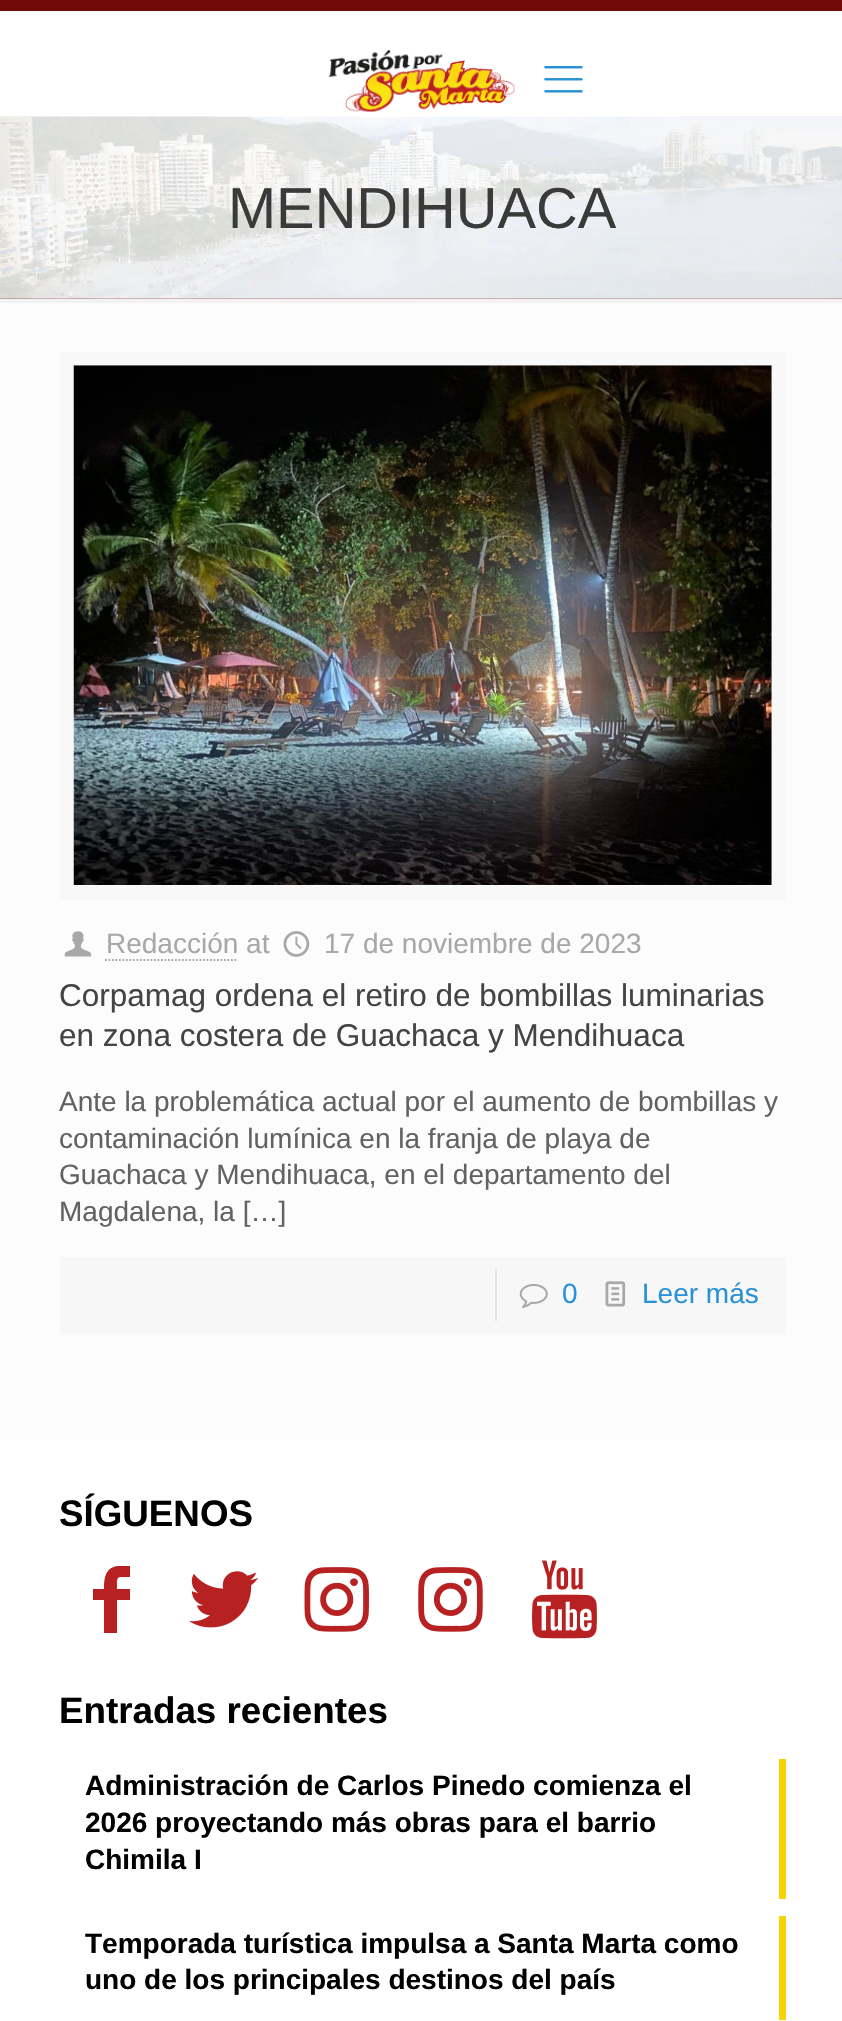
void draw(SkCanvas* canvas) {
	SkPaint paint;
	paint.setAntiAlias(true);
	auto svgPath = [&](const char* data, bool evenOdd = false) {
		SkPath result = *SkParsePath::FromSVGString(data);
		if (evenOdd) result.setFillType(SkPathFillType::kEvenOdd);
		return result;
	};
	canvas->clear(0xfffcfcfc);
	paint.setColor(0xff730a0a);
	canvas->drawRect(SkRect::MakeXYWH(0, 0, 842, 299), paint);
	paint.setColor(0xffffffff);
	canvas->drawRect(SkRect::MakeXYWH(0, 11, 842, 105), paint);
	paint.setColor(0xfff2f2f2);
	canvas->drawRect(SkRect::MakeXYWH(0, 116, 842, 1), paint);
	paint.setColor(0xffffffff);
	canvas->drawRect(SkRect::MakeXYWH(215, 116, 466, 1), paint);
	canvas->drawImageRect(SkImages::DeferredFromEncodedData(SkData::MakeFromFileName("img1.png")), SkRect::MakeXYWH(329, 50, 186, 62), SkSamplingOptions());
	canvas->drawImageRect(SkImages::DeferredFromEncodedData(SkData::MakeFromFileName("img2.png")), SkRect::MakeXYWH(544, 66, 39, 27), SkSamplingOptions());
	canvas->drawImageRect(SkImages::DeferredFromEncodedData(SkData::MakeFromFileName("img3.png")), SkRect::MakeXYWH(0, 116, 842, 183), SkSamplingOptions());
	SkFont f1(fontMgr->matchFamilyStyle("Liberation Sans", SkFontStyle::Normal()), 57.75);
	f1.setSubpixel(true);
	paint.setColor(0xff3a3a3a);
	canvas->drawString("MENDIHUACA", 228, 228, f1, paint);
	paint.setColor(0xfff2f2f2);
	canvas->drawRect(SkRect::MakeXYWH(0, 299, 842, 4), paint);
	paint.setStroke(true);
	paint.setStrokeWidth(14);
	paint.setColor(0xfff8f8f8);
	canvas->drawRect(SkRect::MakeXYWH(67, 359, 712, 534), paint);
	canvas->drawImageRect(SkImages::DeferredFromEncodedData(SkData::MakeFromFileName("img4.png")), SkRect::MakeXYWH(73, 365, 699, 520), SkSamplingOptions());
	canvas->drawImageRect(SkImages::DeferredFromEncodedData(SkData::MakeFromFileName("img5.png")), SkRect::MakeXYWH(64, 931, 28, 26), SkSamplingOptions());
	SkFont f2(fontMgr->matchFamilyStyle("Liberation Sans", SkFontStyle::Normal()), 28);
	f2.setSubpixel(true);
	paint.setStroke(false);
	paint.setColor(0xffa8a8a8);
	canvas->drawString("Redacción at", 106, 953, f2, paint);
	paint.setStroke(true);
	paint.setStrokeWidth(1.8);
	paint.setPathEffect(SkDashPathEffect::Make({{1.75f, 1.75f}}, 0));
	canvas->drawPath(svgPath("M105 960H238"), paint);
	paint.setPathEffect(nullptr);
	canvas->drawImageRect(SkImages::DeferredFromEncodedData(SkData::MakeFromFileName("img6.png")), SkRect::MakeXYWH(283, 931, 27, 26), SkSamplingOptions());
	paint.setStroke(false);
	canvas->drawString("17 de noviembre de 2023", 324, 953, f2, paint);
	SkFont f3(fontMgr->matchFamilyStyle("Liberation Sans", SkFontStyle::Normal()), 31.5);
	f3.setSubpixel(true);
	paint.setColor(0xff444444);
	canvas->drawString("Corpamag ordena el retiro de bombillas luminarias", 59, 1006, f3, paint);
	canvas->drawString("en zona costera de Guachaca y Mendihuaca", 59, 1046, f3, paint);
	paint.setColor(0xff626262);
	canvas->drawString("Ante la problemática actual por el aumento de bombillas y", 59, 1111, f2, paint);
	canvas->drawString("contaminación lumínica en la franja de playa de", 59, 1148, f2, paint);
	canvas->drawString("Guachaca y Mendihuaca, en el departamento del", 59, 1184, f2, paint);
	canvas->drawString("Magdalena, la […]", 59, 1221, f2, paint);
	paint.setColor(0xfff7f7f7);
	canvas->drawRect(SkRect::MakeXYWH(60, 1257, 726, 77), paint);
	paint.setColor(0xffe3e3e3);
	canvas->drawRect(SkRect::MakeXYWH(495, 1269, 2, 52), paint);
	canvas->drawImageRect(SkImages::DeferredFromEncodedData(SkData::MakeFromFileName("img7.png")), SkRect::MakeXYWH(519, 1284, 29, 24), SkSamplingOptions());
	paint.setColor(0xff2991d6);
	canvas->drawString("0", 562, 1303, f2, paint);
	canvas->drawImageRect(SkImages::DeferredFromEncodedData(SkData::MakeFromFileName("img8.png")), SkRect::MakeXYWH(605, 1281, 21, 26), SkSamplingOptions());
	canvas->drawString("Leer más", 642, 1303, f2, paint);
	paint.setColor(0xffffffff);
	canvas->drawRect(SkRect::MakeXYWH(0, 1439, 842, 582), paint);
	SkFont f4(fontMgr->matchFamilyStyle("Liberation Sans", SkFontStyle::Bold()), 36.75);
	f4.setSubpixel(true);
	paint.setColor(0xff000000);
	canvas->drawString("SÍGUENOS", 59, 1526, f4, paint);
	paint.setColor(0xffb82122);
	canvas->drawPath(svgPath("M130 1577C116 1577 117 1575 117 1589H130V1600H117V1633H104V1600H93V1589H104C104 1579 105 1568 117 1566H130Z"), paint);
	canvas->drawImageRect(SkImages::DeferredFromEncodedData(SkData::MakeFromFileName("img9.png")), SkRect::MakeXYWH(189, 1571, 69, 57), SkSamplingOptions());
	canvas->drawImageRect(SkImages::DeferredFromEncodedData(SkData::MakeFromFileName("img10.png")), SkRect::MakeXYWH(304, 1567, 65, 65), SkSamplingOptions());
	canvas->drawImageRect(SkImages::DeferredFromEncodedData(SkData::MakeFromFileName("img11.png")), SkRect::MakeXYWH(418, 1567, 65, 65), SkSamplingOptions());
	canvas->drawImageRect(SkImages::DeferredFromEncodedData(SkData::MakeFromFileName("img12.png")), SkRect::MakeXYWH(532, 1560, 65, 79), SkSamplingOptions());
	paint.setColor(0xff000000);
	canvas->drawString("Entradas recientes", 59, 1723, f4, paint);
	SkFont f5(fontMgr->matchFamilyStyle("Liberation Sans", SkFontStyle::Bold()), 28);
	f5.setSubpixel(true);
	canvas->drawString("Administración de Carlos Pinedo comienza el", 85, 1795, f5, paint);
	canvas->drawString("2026 proyectando más obras para el barrio", 85, 1832, f5, paint);
	canvas->drawString("Chimila I", 85, 1869, f5, paint);
	paint.setColor(0xfff8d202);
	canvas->drawRect(SkRect::MakeXYWH(779, 1759, 7, 140), paint);
	paint.setColor(0xff000000);
	canvas->drawString("Temporada turística impulsa a Santa Marta como", 85, 1953, f5, paint);
	canvas->drawString("uno de los principales destinos del país", 85, 1989, f5, paint);
	paint.setColor(0xfff8d202);
	canvas->drawRect(SkRect::MakeXYWH(779, 1916, 7, 104), paint);
}
